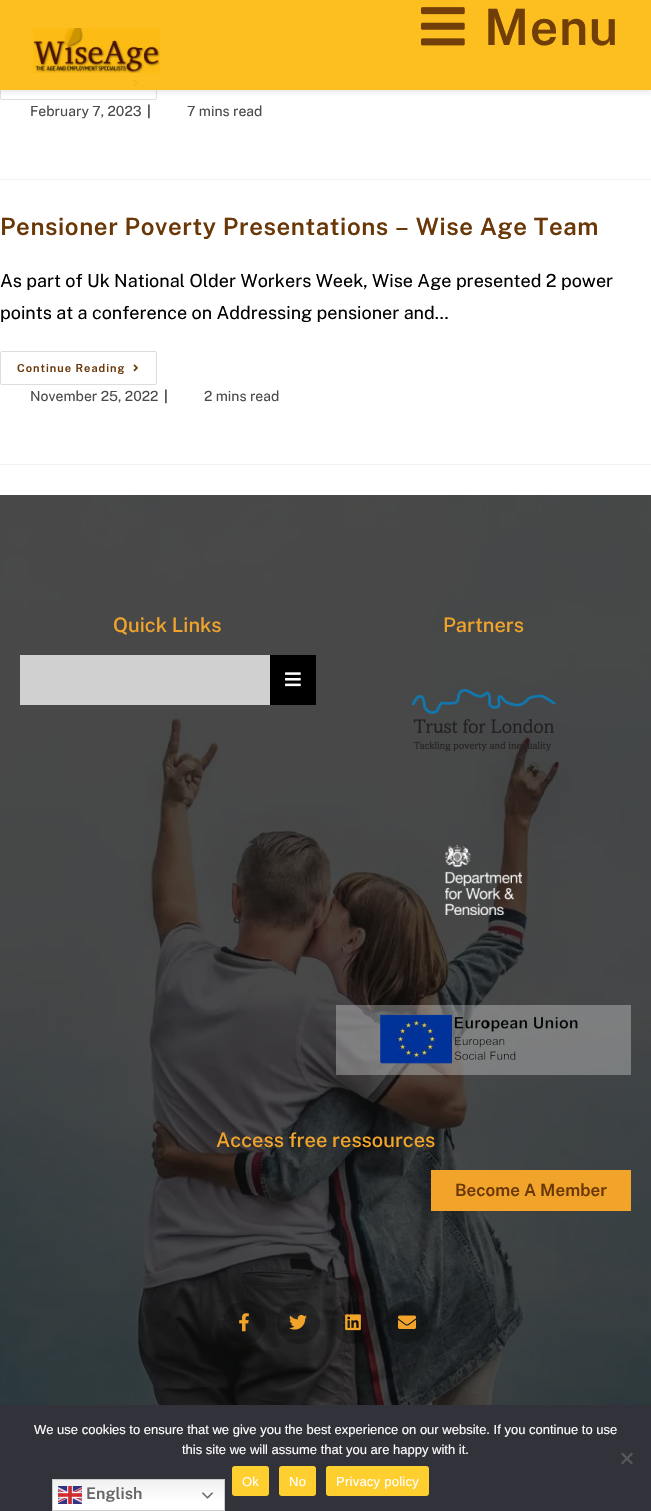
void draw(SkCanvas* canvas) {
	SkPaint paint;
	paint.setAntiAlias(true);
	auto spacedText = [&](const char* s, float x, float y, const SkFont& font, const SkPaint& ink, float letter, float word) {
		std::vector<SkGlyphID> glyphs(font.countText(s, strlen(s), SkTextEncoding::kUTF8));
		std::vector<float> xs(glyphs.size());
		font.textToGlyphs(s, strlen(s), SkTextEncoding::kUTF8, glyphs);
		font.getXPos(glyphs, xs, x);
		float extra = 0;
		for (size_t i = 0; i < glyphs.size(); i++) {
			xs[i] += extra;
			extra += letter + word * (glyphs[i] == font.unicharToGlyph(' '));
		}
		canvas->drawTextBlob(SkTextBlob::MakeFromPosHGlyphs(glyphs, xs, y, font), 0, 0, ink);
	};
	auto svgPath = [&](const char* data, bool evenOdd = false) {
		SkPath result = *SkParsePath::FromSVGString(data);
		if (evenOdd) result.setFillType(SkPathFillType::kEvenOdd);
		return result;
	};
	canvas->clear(0xffffffff);
	paint.setStroke(true);
	paint.setStrokeWidth(1);
	paint.setColor(0xffdddddd);
	canvas->drawRoundRect(SkRect::MakeXYWH(0.5, 66.5, 156, 33), 1.5, 1.5, paint);
	canvas->drawImageRect(SkImages::DeferredFromEncodedData(SkData::MakeFromFileName("img3.png")), SkRect::MakeXYWH(133, 79, 5, 8), SkSamplingOptions());
	canvas->save();
	canvas->clipRect(SkRect::MakeXYWH(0, 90, 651, 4));
	paint.setStroke(false);
	paint.setColor(0x1a000000);
	paint.setMaskFilter(SkMaskFilter::MakeBlur(kNormal_SkBlurStyle, 2.5));
	canvas->drawRect(SkRect::MakeXYWH(0, 2, 651, 90), paint);
	paint.setMaskFilter(nullptr);
	canvas->restore();
	paint.setColor(0xf2fdbc13);
	canvas->drawRect(SkRect::MakeXYWH(0, 0, 651, 90), paint);
	canvas->drawImageRect(SkImages::DeferredFromEncodedData(SkData::MakeFromFileName("img1.png")), SkRect::MakeXYWH(33, 28, 127, 45), SkSamplingOptions());
	canvas->drawImageRect(SkImages::DeferredFromEncodedData(SkData::MakeFromFileName("img2.png")), SkRect::MakeXYWH(421, 7, 44, 39), SkSamplingOptions());
	SkFont f1(fontMgr->matchFamilyStyle("Public Sans", SkFontStyle(600, SkFontStyle::kNormal_Width, SkFontStyle::kUpright_Slant)), 50);
	f1.setSubpixel(true);
	paint.setColor(0xff713e08);
	spacedText("Menu", 484, 45, f1, paint, 0.6, 0);
	paint.setColor(0xfff1f1f1);
	canvas->drawRect(SkRect::MakeXYWH(0, 179, 651, 1), paint);
	SkFont f2(fontMgr->matchFamilyStyle("Public Sans", SkFontStyle::Normal()), 14);
	f2.setSubpixel(true);
	paint.setColor(0xff4a4a4a);
	canvas->drawString("February 7, 2023", 30, 116, f2, paint);
	SkFont f3(fontMgr->matchFamilyStyle("Public Sans", SkFontStyle::Bold()), 14);
	f3.setSubpixel(true);
	canvas->drawString("|", 147, 116, f3, paint);
	canvas->drawString("7 mins read", 187, 116, f2, paint);
	paint.setColor(0xfff1f1f1);
	canvas->drawRect(SkRect::MakeXYWH(0, 464, 651, 1), paint);
	SkFont f4(fontMgr->matchFamilyStyle("Public Sans", SkFontStyle(600, SkFontStyle::kNormal_Width, SkFontStyle::kUpright_Slant)), 24);
	f4.setSubpixel(true);
	paint.setColor(0xff6a3707);
	spacedText("Pensioner Poverty Presentations – Wise Age Team", 0, 235, f4, paint, 0.6, 0);
	SkFont f5(fontMgr->matchFamilyStyle("Public Sans", SkFontStyle::Normal()), 18);
	f5.setSubpixel(true);
	paint.setColor(0xff000000);
	canvas->drawString("As part of Uk National Older Workers Week, Wise Age presented 2 power", 0, 287, f5, paint);
	canvas->drawString("points at a conference on Addressing pensioner and…", 0, 319, f5, paint);
	paint.setStroke(true);
	paint.setColor(0xffdddddd);
	canvas->drawRoundRect(SkRect::MakeXYWH(0.5, 351.5, 156, 33), 1.5, 1.5, paint);
	SkFont f6(fontMgr->matchFamilyStyle("Public Sans", SkFontStyle(600, SkFontStyle::kNormal_Width, SkFontStyle::kUpright_Slant)), 11);
	f6.setSubpixel(true);
	paint.setStroke(false);
	paint.setColor(0xff6a3707);
	spacedText("Continue Reading", 17, 372, f6, paint, 1, 0);
	canvas->drawImageRect(SkImages::DeferredFromEncodedData(SkData::MakeFromFileName("img3.png")), SkRect::MakeXYWH(133, 364, 5, 8), SkSamplingOptions());
	paint.setColor(0xff4a4a4a);
	canvas->drawString("November 25, 2022", 30, 401, f2, paint);
	canvas->drawString("|", 164, 401, f3, paint);
	canvas->drawString("2 mins read", 204, 401, f2, paint);
	canvas->drawImageRect(SkImages::DeferredFromEncodedData(SkData::MakeFromFileName("img4.png")), SkRect::MakeXYWH(0, 495, 651, 910), SkSamplingOptions());
	SkFont f7(fontMgr->matchFamilyStyle("Public Sans", SkFontStyle(500, SkFontStyle::kNormal_Width, SkFontStyle::kUpright_Slant)), 20);
	f7.setSubpixel(true);
	paint.setColor(0xfff2a42a);
	canvas->drawString("Quick Links", 113, 632, f7, paint);
	paint.setColor(0xffd1d0d0);
	canvas->drawRect(SkRect::MakeXYWH(20, 655, 250, 50), paint);
	paint.setColor(0xff000000);
	canvas->drawRect(SkRect::MakeXYWH(270, 655, 46, 50), paint);
	canvas->drawImageRect(SkImages::DeferredFromEncodedData(SkData::MakeFromFileName("img5.png")), SkRect::MakeXYWH(285, 672, 16, 15), SkSamplingOptions());
	paint.setColor(0xfff2a42a);
	canvas->drawString("Partners", 443, 632, f7, paint);
	canvas->drawImageRect(SkImages::DeferredFromEncodedData(SkData::MakeFromFileName("img6.png")), SkRect::MakeXYWH(411, 689, 145, 62), SkSamplingOptions());
	canvas->drawImageRect(SkImages::DeferredFromEncodedData(SkData::MakeFromFileName("img7.png")), SkRect::MakeXYWH(445, 845, 77, 70), SkSamplingOptions());
	paint.setColor(0x4dffffff);
	canvas->drawRect(SkRect::MakeXYWH(336, 1005, 295, 70), paint);
	canvas->drawImageRect(SkImages::DeferredFromEncodedData(SkData::MakeFromFileName("img8.png")), SkRect::MakeXYWH(380, 1014, 198, 50), SkSamplingOptions());
	paint.setColor(0xfff2a42a);
	canvas->drawString("Access free ressources", 216, 1147, f7, paint);
	canvas->drawRect(SkRect::MakeXYWH(431, 1170, 200, 41), paint);
	SkFont f8(fontMgr->matchFamilyStyle("Public Sans", SkFontStyle(600, SkFontStyle::kNormal_Width, SkFontStyle::kUpright_Slant)), 17);
	f8.setSubpixel(true);
	paint.setColor(0xff6a3707);
	canvas->drawString("Become A Member", 455, 1196, f8, paint);
	paint.setColor(0x3d000000);
	canvas->drawCircle(244.5, 1322.5, 21.5, paint);
	canvas->drawImageRect(SkImages::DeferredFromEncodedData(SkData::MakeFromFileName("img9.png")), SkRect::MakeXYWH(239, 1313, 10, 19), SkSamplingOptions());
	canvas->drawCircle(298.5, 1322.5, 21.5, paint);
	canvas->drawImageRect(SkImages::DeferredFromEncodedData(SkData::MakeFromFileName("img10.png")), SkRect::MakeXYWH(289, 1314, 18, 16), SkSamplingOptions());
	canvas->drawCircle(352.5, 1322.5, 21.5, paint);
	canvas->drawImageRect(SkImages::DeferredFromEncodedData(SkData::MakeFromFileName("img11.png")), SkRect::MakeXYWH(345, 1314, 16, 17), SkSamplingOptions());
	canvas->drawCircle(406.5, 1322.5, 21.5, paint);
	canvas->drawImageRect(SkImages::DeferredFromEncodedData(SkData::MakeFromFileName("img12.png")), SkRect::MakeXYWH(398, 1315, 18, 14), SkSamplingOptions());
	paint.setColor(0xff32323a);
	canvas->drawRect(SkRect::MakeXYWH(0, 1405, 651, 106), paint);
	SkFont f9(fontMgr->matchFamilyStyle("Liberation Sans", SkFontStyle::Normal()), 13);
	f9.setSubpixel(true);
	paint.setColor(0xffffffff);
	canvas->drawString("We use cookies to ensure that we give you the best experience on our website. If you continue to use", 34, 1434, f9, paint);
	canvas->drawString("this site we will assume that you are happy with it.", 182, 1454, f9, paint);
	paint.setColor(0xff59595d);
	canvas->drawPath(svgPath("M631.5 1452.5L633 1454L622.5 1464.5L621 1463Z"), paint);
	canvas->drawPath(svgPath("M621 1454L622.5 1452.5L633 1463L631.5 1464.5Z"), paint);
	paint.setColor(0xffffcf2f);
	canvas->drawRoundRect(SkRect::MakeXYWH(232, 1466, 37, 30), 3, 3, paint);
	paint.setColor(0xffffffff);
	spacedText("Ok", 242, 1486, f9, paint, 0.25, 0);
	paint.setColor(0xffffcf2f);
	canvas->drawRoundRect(SkRect::MakeXYWH(279, 1466, 37, 30), 3, 3, paint);
	paint.setColor(0xffffffff);
	spacedText("No", 289, 1486, f9, paint, 0.25, 0);
	paint.setColor(0xffffcf2f);
	canvas->drawRoundRect(SkRect::MakeXYWH(326, 1466, 103, 30), 3, 3, paint);
	paint.setColor(0xffffffff);
	spacedText("Privacy policy", 336, 1486, f9, paint, 0.25, 0);
	{
		const SkColor colors[] = {0xffefefef, 0xffffffff};
		const float stops[] = {0, 0.7};
		const SkPoint ends[] = {{139, 1479}, {139, 1511}};
		paint.setShader(SkGradientShader::MakeLinear(ends, colors, stops, 2, SkTileMode::kClamp));
		paint.setAlpha(255);
	}
	canvas->drawRect(SkRect::MakeXYWH(53, 1480, 171, 30), paint);
	paint.setStroke(true);
	paint.setShader(nullptr);
	paint.setColor(0xffcccccc);
	canvas->drawRect(SkRect::MakeXYWH(52.5, 1479.5, 172, 31), paint);
	canvas->drawImageRect(SkImages::DeferredFromEncodedData(SkData::MakeFromFileName("img13.png")), SkRect::MakeXYWH(58, 1486, 24, 18), SkSamplingOptions());
	SkFont f10(fontMgr->matchFamilyStyle("Public Sans", SkFontStyle(600, SkFontStyle::kNormal_Width, SkFontStyle::kUpright_Slant)), 16);
	f10.setSubpixel(true);
	paint.setStroke(false);
	paint.setColor(0xff666666);
	canvas->drawString("English", 86, 1499, f10, paint);
	canvas->drawImageRect(SkImages::DeferredFromEncodedData(SkData::MakeFromFileName("img14.png")), SkRect::MakeXYWH(202, 1492, 11, 7), SkSamplingOptions());
}
